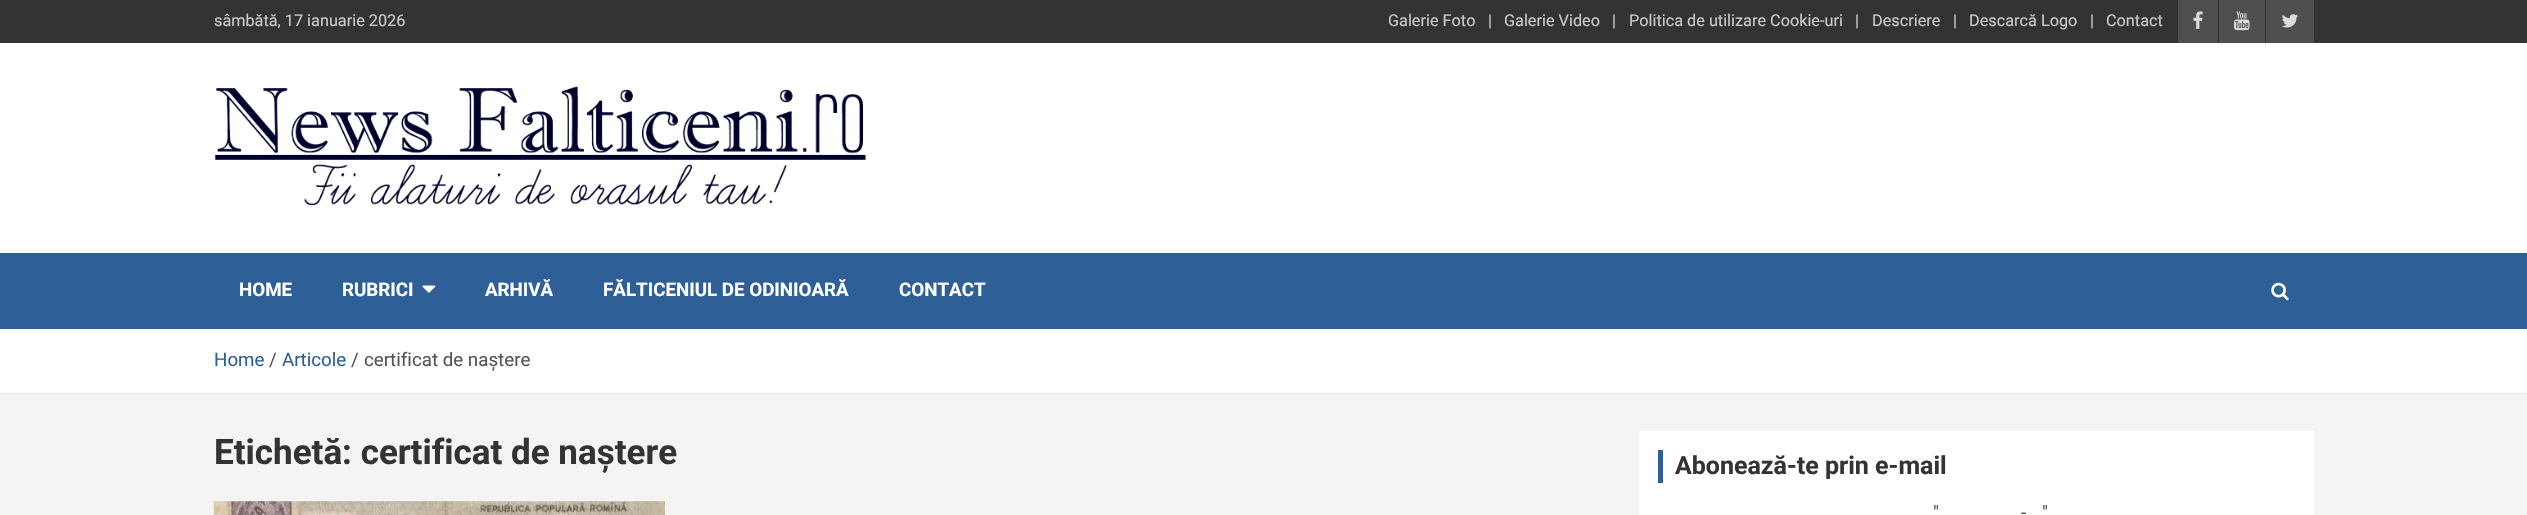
void draw(SkCanvas* canvas) {
	SkPaint paint;
	paint.setAntiAlias(true);
	canvas->clear(0xfff4f4f4);
	paint.setColor(0xff333333);
	canvas->drawRect(SkRect::MakeXYWH(0, 0, 2527, 43), paint);
	SkFont f1(fontMgr->matchFamilyStyle("Roboto", SkFontStyle::Normal()), 16.25);
	f1.setSubpixel(true);
	paint.setColor(0xffcccccc);
	canvas->drawString("sâmbătă, 17 ianuarie 2026", 214, 26, f1, paint);
	canvas->drawString("Galerie Foto", 1388, 26, f1, paint);
	canvas->drawString("|", 1488, 26, f1, paint);
	canvas->drawString("Galerie Video", 1504, 26, f1, paint);
	canvas->drawString("|", 1612, 26, f1, paint);
	canvas->drawString("Politica de utilizare Cookie-uri", 1629, 26, f1, paint);
	canvas->drawString("|", 1855, 26, f1, paint);
	canvas->drawString("Descriere", 1872, 26, f1, paint);
	canvas->drawString("|", 1953, 26, f1, paint);
	canvas->drawString("Descarcă Logo", 1969, 26, f1, paint);
	canvas->drawString("|", 2090, 26, f1, paint);
	canvas->drawString("Contact", 2106, 26, f1, paint);
	paint.setColor(0xff4f4f4f);
	canvas->drawRect(SkRect::MakeXYWH(2178, 0, 40, 43), paint);
	canvas->drawImageRect(SkImages::DeferredFromEncodedData(SkData::MakeFromFileName("img1.png")), SkRect::MakeXYWH(2193, 11, 10, 18), SkSamplingOptions());
	canvas->drawRect(SkRect::MakeXYWH(2219, 0, 46, 43), paint);
	canvas->drawImageRect(SkImages::DeferredFromEncodedData(SkData::MakeFromFileName("img2.png")), SkRect::MakeXYWH(2234, 11, 16, 20), SkSamplingOptions());
	canvas->drawRect(SkRect::MakeXYWH(2266, 0, 48, 43), paint);
	canvas->drawImageRect(SkImages::DeferredFromEncodedData(SkData::MakeFromFileName("img3.png")), SkRect::MakeXYWH(2282, 14, 16, 14), SkSamplingOptions());
	paint.setColor(0xffffffff);
	canvas->drawRect(SkRect::MakeXYWH(0, 43, 2527, 210), paint);
	canvas->drawImageRect(SkImages::DeferredFromEncodedData(SkData::MakeFromFileName("img4.png")), SkRect::MakeXYWH(214, 86, 653, 120), SkSamplingOptions());
	paint.setColor(0xff2e5f97);
	canvas->drawRect(SkRect::MakeXYWH(0, 253, 2527, 76), paint);
	SkFont f2(fontMgr->matchFamilyStyle("Roboto", SkFontStyle::Bold()), 18.75);
	f2.setSubpixel(true);
	paint.setColor(0xffffffff);
	canvas->drawString("HOME", 239, 296, f2, paint);
	canvas->drawString("RUBRICI", 342, 296, f2, paint);
	canvas->drawImageRect(SkImages::DeferredFromEncodedData(SkData::MakeFromFileName("img5.png")), SkRect::MakeXYWH(422, 285, 14, 8), SkSamplingOptions());
	canvas->drawString("ARHIVĂ", 485, 296, f2, paint);
	canvas->drawString("FĂLTICENIUL DE ODINIOARĂ", 603, 296, f2, paint);
	canvas->drawString("CONTACT", 899, 296, f2, paint);
	canvas->drawImageRect(SkImages::DeferredFromEncodedData(SkData::MakeFromFileName("img6.png")), SkRect::MakeXYWH(2271, 282, 18, 19), SkSamplingOptions());
	canvas->drawRect(SkRect::MakeXYWH(0, 329, 2527, 64), paint);
	paint.setColor(0xffe6e6e6);
	canvas->drawRect(SkRect::MakeXYWH(0, 393, 2527, 1), paint);
	SkFont f3(fontMgr->matchFamilyStyle("Roboto", SkFontStyle::Normal()), 18.75);
	f3.setSubpixel(true);
	paint.setColor(0xff2e5f97);
	canvas->drawString("Home", 214, 366, f3, paint);
	paint.setColor(0xff555555);
	canvas->drawString("/", 269, 366, f3, paint);
	paint.setColor(0xff2e5f97);
	canvas->drawString("Articole", 282, 366, f3, paint);
	paint.setColor(0xff555555);
	canvas->drawString("/", 351, 366, f3, paint);
	canvas->drawString("certificat de naștere", 364, 366, f3, paint);
	SkFont f4(fontMgr->matchFamilyStyle("Roboto", SkFontStyle::Bold()), 35);
	f4.setSubpixel(true);
	paint.setColor(0xff333333);
	canvas->drawString("Etichetă: certificat de naștere", 214, 464, f4, paint);
	canvas->drawImageRect(SkImages::DeferredFromEncodedData(SkData::MakeFromFileName("img7.png")), SkRect::MakeXYWH(213, 501, 452, 14), SkSamplingOptions());
	paint.setColor(0xffffffff);
	canvas->drawRect(SkRect::MakeXYWH(1639, 431, 675, 84), paint);
	paint.setColor(0xff2e5f97);
	canvas->drawRect(SkRect::MakeXYWH(1658, 450, 5, 33), paint);
	SkFont f5(fontMgr->matchFamilyStyle("Roboto", SkFontStyle::Bold()), 25);
	f5.setSubpixel(true);
	paint.setColor(0xff333333);
	canvas->drawString("Abonează-te prin e-mail", 1675, 474, f5, paint);
	paint.setColor(0xff555555);
	canvas->drawString("\"", 1933, 519, f3, paint);
	canvas->drawString("\"", 2042, 519, f3, paint);
	canvas->drawString("-", 2021, 519, f3, paint);
}
